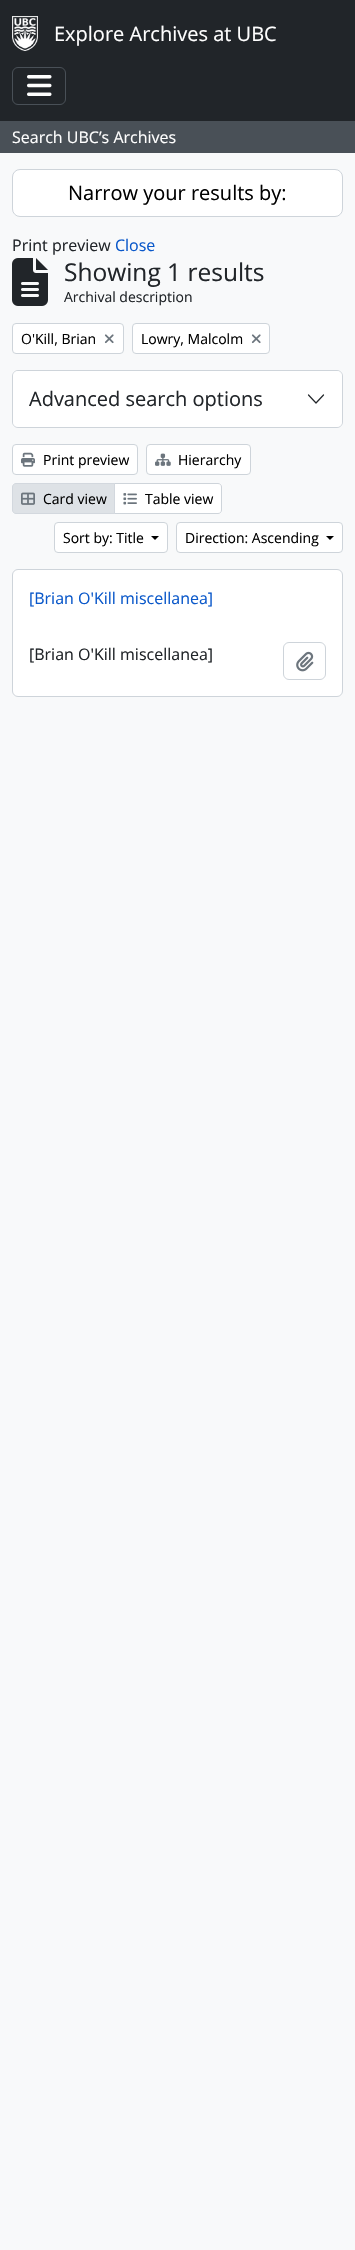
void draw(SkCanvas* canvas) {
	SkPaint paint;
	paint.setAntiAlias(true);
	auto svgPath = [&](const char* data, bool evenOdd = false) {
		SkPath result = *SkParsePath::FromSVGString(data);
		if (evenOdd) result.setFillType(SkPathFillType::kEvenOdd);
		return result;
	};
	canvas->clear(0xfff8f9fa);
	paint.setColor(0xff212529);
	canvas->drawRect(SkRect::MakeXYWH(0, 0, 355, 121), paint);
	canvas->drawImageRect(SkImages::DeferredFromEncodedData(SkData::MakeFromFileName("img1.png")), SkRect::MakeXYWH(12, 16, 26, 35), SkSamplingOptions());
	SkFont f1(fontMgr->matchFamilyStyle("Open Sans", SkFontStyle::Normal()), 20);
	f1.setSubpixel(true);
	paint.setColor(0xffffffff);
	canvas->drawString("Explore Archives at UBC", 54, 41, f1, paint);
	paint.setStroke(true);
	paint.setStrokeWidth(1);
	paint.setColor(0xff495057);
	canvas->drawRoundRect(SkRect::MakeXYWH(12.5, 67.5, 53, 37), 5.5, 5.5, paint);
	canvas->drawImageRect(SkImages::DeferredFromEncodedData(SkData::MakeFromFileName("img2.png")), SkRect::MakeXYWH(27, 75, 25, 21), SkSamplingOptions());
	paint.setStroke(false);
	canvas->drawRect(SkRect::MakeXYWH(0, 121, 355, 32), paint);
	SkFont f2(fontMgr->matchFamilyStyle("Open Sans", SkFontStyle::Normal()), 16);
	f2.setSubpixel(true);
	paint.setColor(0xffffffff);
	canvas->drawString("Search UBC’s Archives", 12, 143, f2, paint);
	canvas->drawRoundRect(SkRect::MakeXYWH(12.5, 169.5, 330, 47), 7.5, 7.5, paint);
	paint.setStroke(true);
	paint.setColor(0xffced4da);
	canvas->drawRoundRect(SkRect::MakeXYWH(12.5, 169.5, 330, 47), 7.5, 7.5, paint);
	paint.setStroke(false);
	paint.setColor(0xff000000);
	canvas->drawString("Narrow your results by:", 68, 200, f1, paint);
	paint.setColor(0xff212529);
	canvas->drawString("Print preview", 12, 251, f2, paint);
	paint.setColor(0xff0a58ca);
	canvas->drawString("Close", 115, 251, f2, paint);
	canvas->drawImageRect(SkImages::DeferredFromEncodedData(SkData::MakeFromFileName("img3.png")), SkRect::MakeXYWH(12, 258, 36, 48), SkSamplingOptions());
	SkFont f3(fontMgr->matchFamilyStyle("Open Sans", SkFontStyle::Normal()), 24.5);
	f3.setSubpixel(true);
	paint.setColor(0xff212529);
	canvas->drawString("Showing 1 results", 64, 281, f3, paint);
	SkFont f4(fontMgr->matchFamilyStyle("Open Sans", SkFontStyle::Normal()), 14);
	f4.setSubpixel(true);
	canvas->drawString("Archival description", 64, 302, f4, paint);
	paint.setColor(0xffffffff);
	canvas->drawRoundRect(SkRect::MakeXYWH(12.5, 323.5, 111, 30), 3.5, 3.5, paint);
	paint.setStroke(true);
	paint.setColor(0xffced4da);
	canvas->drawRoundRect(SkRect::MakeXYWH(12.5, 323.5, 111, 30), 3.5, 3.5, paint);
	paint.setStroke(false);
	paint.setColor(0xff000000);
	canvas->drawString("O'Kill, Brian", 21, 344, f4, paint);
	canvas->drawImageRect(SkImages::DeferredFromEncodedData(SkData::MakeFromFileName("img4.png")), SkRect::MakeXYWH(104, 334, 10, 10), SkSamplingOptions());
	paint.setColor(0xffffffff);
	canvas->drawRoundRect(SkRect::MakeXYWH(132.5, 323.5, 137, 30), 3.5, 3.5, paint);
	paint.setStroke(true);
	paint.setColor(0xffced4da);
	canvas->drawRoundRect(SkRect::MakeXYWH(132.5, 323.5, 137, 30), 3.5, 3.5, paint);
	paint.setStroke(false);
	paint.setColor(0xff000000);
	canvas->drawString("Lowry, Malcolm", 141, 344, f4, paint);
	canvas->drawImageRect(SkImages::DeferredFromEncodedData(SkData::MakeFromFileName("img4.png")), SkRect::MakeXYWH(251, 334, 10, 10), SkSamplingOptions());
	paint.setStroke(true);
	paint.setColor(0xffced4da);
	canvas->drawRoundRect(SkRect::MakeXYWH(12.5, 370.5, 330, 57), 5.5, 5.5, paint);
	paint.setStroke(false);
	paint.setColor(0xffffffff);
	canvas->drawRoundRect(SkRect::MakeXYWH(13, 371, 329, 56), 5, 5, paint);
	paint.setColor(0xff212529);
	canvas->drawString("Advanced search options", 29, 406, f1, paint);
	paint.setStroke(true);
	paint.setStrokeWidth(1.2);
	paint.setStrokeCap(SkPaint::kRound_Cap);
	paint.setStrokeJoin(SkPaint::kRound_Join);
	canvas->drawPath(svgPath("M308.5 395L316 403L323.5 395"), paint);
	paint.setStroke(false);
	paint.setColor(0xffffffff);
	canvas->drawRoundRect(SkRect::MakeXYWH(12.5, 444.5, 125, 30), 3.5, 3.5, paint);
	paint.setStroke(true);
	paint.setStrokeWidth(1);
	paint.setStrokeCap(SkPaint::kButt_Cap);
	paint.setStrokeJoin(SkPaint::kMiter_Join);
	paint.setColor(0xffced4da);
	canvas->drawRoundRect(SkRect::MakeXYWH(12.5, 444.5, 125, 30), 3.5, 3.5, paint);
	canvas->drawImageRect(SkImages::DeferredFromEncodedData(SkData::MakeFromFileName("img5.png")), SkRect::MakeXYWH(21, 452, 14, 15), SkSamplingOptions());
	paint.setStroke(false);
	paint.setColor(0xff000000);
	canvas->drawString("Print preview", 43, 465, f4, paint);
	paint.setColor(0xffffffff);
	canvas->drawRoundRect(SkRect::MakeXYWH(146.5, 444.5, 104, 30), 3.5, 3.5, paint);
	paint.setStroke(true);
	paint.setColor(0xffced4da);
	canvas->drawRoundRect(SkRect::MakeXYWH(146.5, 444.5, 104, 30), 3.5, 3.5, paint);
	canvas->drawImageRect(SkImages::DeferredFromEncodedData(SkData::MakeFromFileName("img6.png")), SkRect::MakeXYWH(155, 453, 16, 13), SkSamplingOptions());
	paint.setStroke(false);
	paint.setColor(0xff000000);
	canvas->drawString("Hierarchy", 178, 465, f4, paint);
	paint.setColor(0xffffffff);
	canvas->drawPath(svgPath("M114.5 483.5H218C220 483.5 221.5 485 221.5 487V510C221.5 512 220 513.5 218 513.5H114.5Z"), paint);
	paint.setStroke(true);
	paint.setColor(0xffced4da);
	canvas->drawPath(svgPath("M114.5 483.5H218C220 483.5 221.5 485 221.5 487V510C221.5 512 220 513.5 218 513.5H114.5Z"), paint);
	paint.setStroke(false);
	paint.setColor(0xffdee2e6);
	canvas->drawPath(svgPath("M16 483.5H114.5V513.5H16C14 513.5 12.5 512 12.5 510V487C12.5 485 14 483.5 16 483.5Z"), paint);
	paint.setStroke(true);
	paint.setColor(0xffd3d8de);
	canvas->drawPath(svgPath("M16 483.5H114.5V513.5H16C14 513.5 12.5 512 12.5 510V487C12.5 485 14 483.5 16 483.5Z"), paint);
	canvas->drawImageRect(SkImages::DeferredFromEncodedData(SkData::MakeFromFileName("img7.png")), SkRect::MakeXYWH(21, 492, 14, 13), SkSamplingOptions());
	paint.setStroke(false);
	paint.setColor(0xff000000);
	canvas->drawString("Card view", 43, 504, f4, paint);
	canvas->drawImageRect(SkImages::DeferredFromEncodedData(SkData::MakeFromFileName("img8.png")), SkRect::MakeXYWH(123, 493, 14, 12), SkSamplingOptions());
	canvas->drawString("Table view", 145, 504, f4, paint);
	paint.setColor(0xffffffff);
	canvas->drawRoundRect(SkRect::MakeXYWH(54.5, 522.5, 113, 30), 3.5, 3.5, paint);
	paint.setStroke(true);
	paint.setColor(0xffced4da);
	canvas->drawRoundRect(SkRect::MakeXYWH(54.5, 522.5, 113, 30), 3.5, 3.5, paint);
	paint.setStroke(false);
	paint.setColor(0xff000000);
	canvas->drawString("Sort by: Title", 63, 543, f4, paint);
	canvas->drawPath(svgPath("M151 536H159L155 540Z"), paint);
	paint.setColor(0xffffffff);
	canvas->drawRoundRect(SkRect::MakeXYWH(176.5, 522.5, 166, 30), 3.5, 3.5, paint);
	paint.setStroke(true);
	paint.setColor(0xffced4da);
	canvas->drawRoundRect(SkRect::MakeXYWH(176.5, 522.5, 166, 30), 3.5, 3.5, paint);
	paint.setStroke(false);
	paint.setColor(0xff000000);
	canvas->drawString("Direction: Ascending", 185, 543, f4, paint);
	canvas->drawPath(svgPath("M326 536H334L330 540Z"), paint);
	paint.setColor(0xffffffff);
	canvas->drawRoundRect(SkRect::MakeXYWH(12.5, 569.5, 330, 127), 5.5, 5.5, paint);
	paint.setStroke(true);
	paint.setColor(0xffced4da);
	canvas->drawRoundRect(SkRect::MakeXYWH(12.5, 569.5, 330, 127), 5.5, 5.5, paint);
	paint.setStroke(false);
	paint.setColor(0xff0a58ca);
	canvas->drawString("[Brian O'Kill miscellanea]", 29, 604, f2, paint);
	paint.setColor(0xff212529);
	canvas->drawString("[Brian O'Kill miscellanea]", 29, 660, f2, paint);
	paint.setStroke(true);
	paint.setColor(0xffced4da);
	canvas->drawRoundRect(SkRect::MakeXYWH(283.5, 642.5, 42, 37), 5.5, 5.5, paint);
	canvas->drawImageRect(SkImages::DeferredFromEncodedData(SkData::MakeFromFileName("img9.png")), SkRect::MakeXYWH(296, 651, 18, 21), SkSamplingOptions());
}
